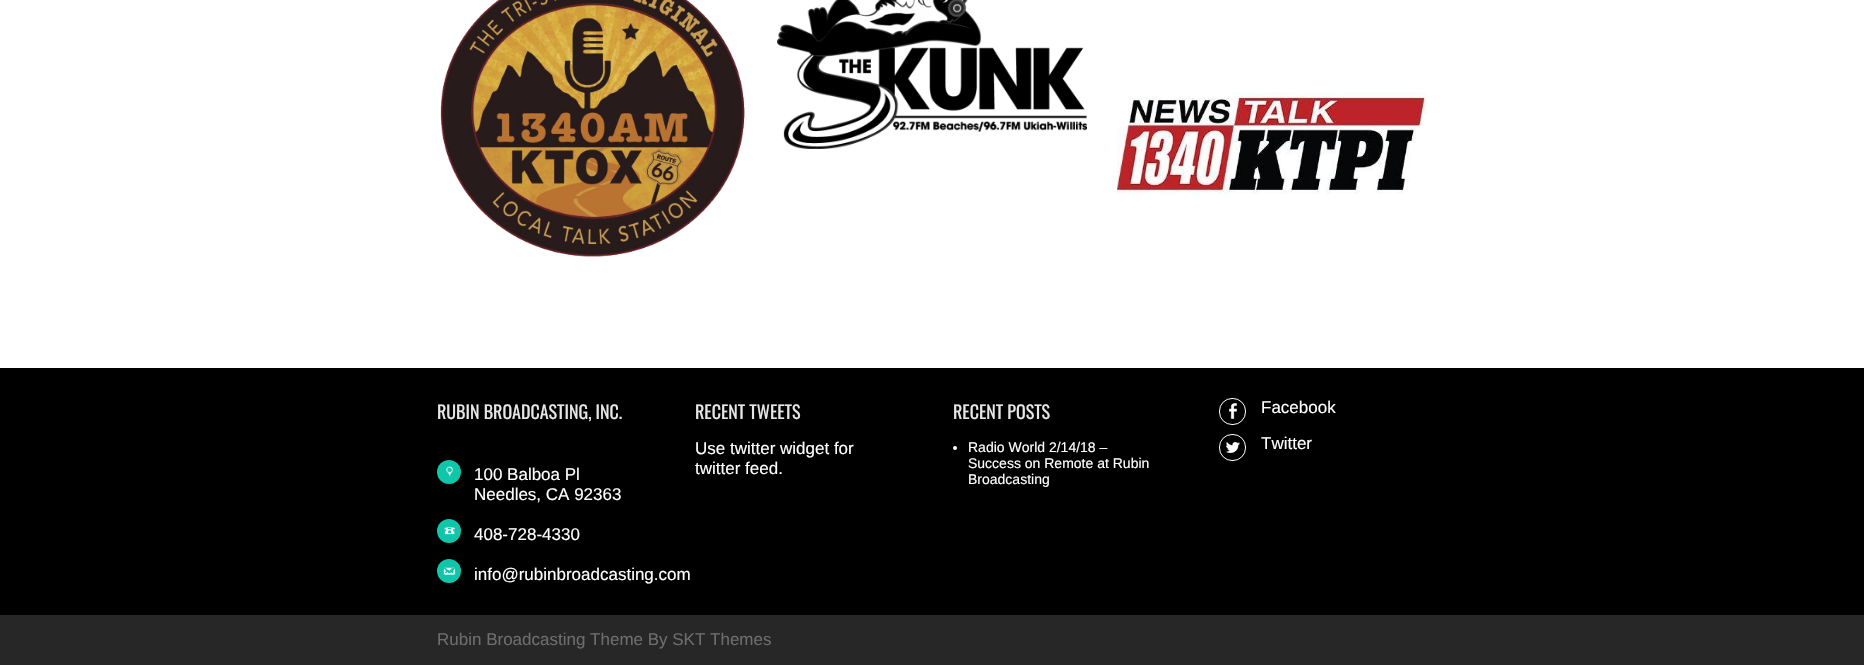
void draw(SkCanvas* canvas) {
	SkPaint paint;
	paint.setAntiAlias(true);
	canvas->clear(0xffffffff);
	canvas->drawImageRect(SkImages::DeferredFromEncodedData(SkData::MakeFromFileName("img1.png")), SkRect::MakeXYWH(440, 0, 305, 257), SkSamplingOptions());
	canvas->drawImageRect(SkImages::DeferredFromEncodedData(SkData::MakeFromFileName("img2.png")), SkRect::MakeXYWH(777, 0, 310, 149), SkSamplingOptions());
	canvas->drawImageRect(SkImages::DeferredFromEncodedData(SkData::MakeFromFileName("img3.png")), SkRect::MakeXYWH(1117, 92, 310, 103), SkSamplingOptions());
	paint.setColor(0xff000000);
	canvas->drawRect(SkRect::MakeXYWH(0, 368, 1864, 247), paint);
	SkFont f1(fontMgr->matchFamilyStyle("Oswald", SkFontStyle::Normal()), 18);
	f1.setSubpixel(true);
	paint.setColor(0xffe7e7e7);
	canvas->drawString("RUBIN BROADCASTING, INC.", 437, 419, f1, paint);
	paint.setColor(0xff0ec7ab);
	canvas->drawCircle(449, 472, 12, paint);
	canvas->drawImageRect(SkImages::DeferredFromEncodedData(SkData::MakeFromFileName("img4.png")), SkRect::MakeXYWH(446, 466, 7, 11), SkSamplingOptions());
	SkFont f2(fontMgr->matchFamilyStyle("Liberation Sans", SkFontStyle::Normal()), 17);
	f2.setSubpixel(true);
	paint.setColor(0xffffffff);
	canvas->drawString("100 Balboa Pl", 474, 480, f2, paint);
	canvas->drawString("Needles, CA 92363", 474, 500, f2, paint);
	paint.setColor(0xff0ec7ab);
	canvas->drawCircle(449, 531, 12, paint);
	canvas->drawImageRect(SkImages::DeferredFromEncodedData(SkData::MakeFromFileName("img5.png")), SkRect::MakeXYWH(444, 527, 11, 8), SkSamplingOptions());
	paint.setColor(0xffffffff);
	canvas->drawString("408-728-4330", 474, 540, f2, paint);
	paint.setColor(0xff0ec7ab);
	canvas->drawCircle(449, 571, 12, paint);
	canvas->drawImageRect(SkImages::DeferredFromEncodedData(SkData::MakeFromFileName("img6.png")), SkRect::MakeXYWH(443, 567, 13, 8), SkSamplingOptions());
	paint.setColor(0xffffffff);
	canvas->drawString("info@rubinbroadcasting.com", 474, 580, f2, paint);
	paint.setColor(0xffe7e7e7);
	canvas->drawString("RECENT TWEETS", 695, 419, f1, paint);
	paint.setColor(0xffffffff);
	canvas->drawString("Use twitter widget for", 695, 454, f2, paint);
	canvas->drawString("twitter feed.", 695, 474, f2, paint);
	paint.setColor(0xffe7e7e7);
	canvas->drawString("RECENT POSTS", 953, 419, f1, paint);
	paint.setColor(0xffffffff);
	canvas->drawCircle(955, 448, 2, paint);
	SkFont f3(fontMgr->matchFamilyStyle("Liberation Sans", SkFontStyle::Normal()), 14);
	f3.setSubpixel(true);
	canvas->drawString("Radio World 2/14/18 –", 968, 452, f3, paint);
	canvas->drawString("Success on Remote at Rubin", 968, 468, f3, paint);
	canvas->drawString("Broadcasting", 968, 484, f3, paint);
	canvas->drawImageRect(SkImages::DeferredFromEncodedData(SkData::MakeFromFileName("img7.png")), SkRect::MakeXYWH(1229, 403, 8, 16), SkSamplingOptions());
	paint.setStroke(true);
	paint.setStrokeWidth(1);
	canvas->drawRoundRect(SkRect::MakeXYWH(1219.5, 398.5, 26, 26), 12.5, 12.5, paint);
	paint.setStroke(false);
	canvas->drawString("Facebook", 1261, 413, f2, paint);
	canvas->drawImageRect(SkImages::DeferredFromEncodedData(SkData::MakeFromFileName("img8.png")), SkRect::MakeXYWH(1226, 442, 14, 11), SkSamplingOptions());
	paint.setStroke(true);
	canvas->drawRoundRect(SkRect::MakeXYWH(1219.5, 434.5, 26, 26), 12.5, 12.5, paint);
	paint.setStroke(false);
	canvas->drawString("Twitter", 1261, 449, f2, paint);
	paint.setColor(0xff272727);
	canvas->drawRect(SkRect::MakeXYWH(0, 615, 1864, 50), paint);
	paint.setColor(0xff6d6d6d);
	canvas->drawString("Rubin Broadcasting Theme By SKT Themes", 437, 645, f2, paint);
}
